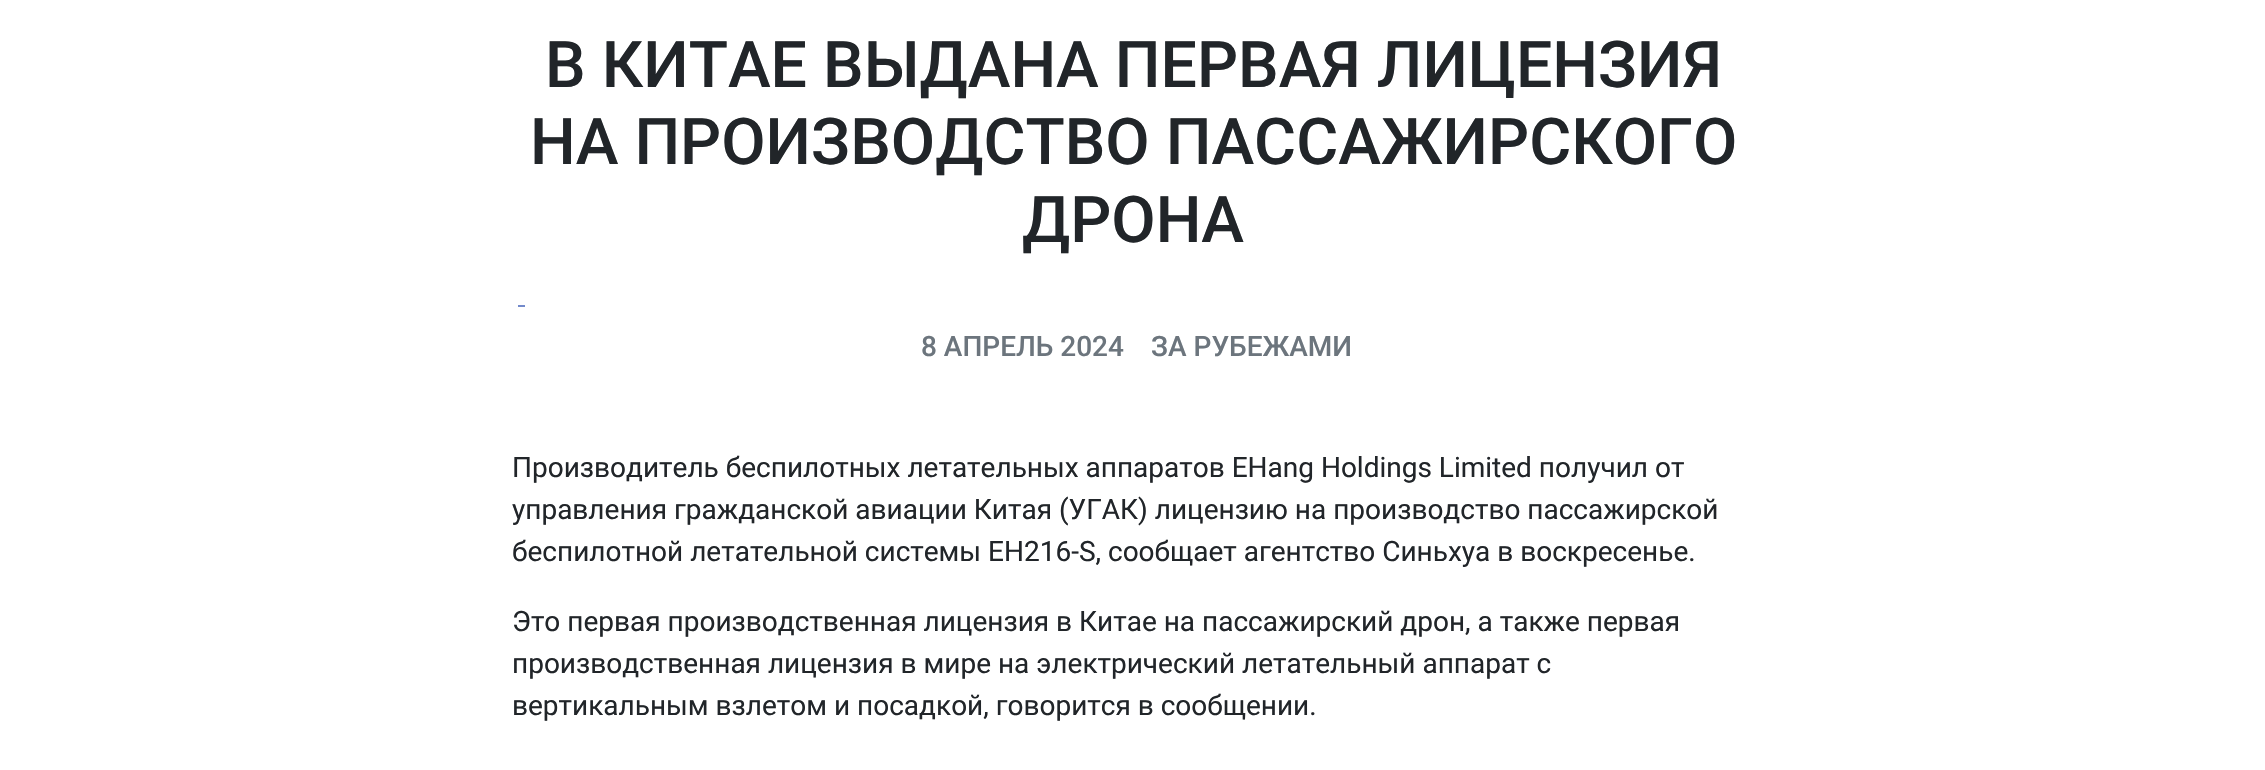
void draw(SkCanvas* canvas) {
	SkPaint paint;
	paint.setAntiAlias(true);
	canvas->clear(0xffffffff);
	SkFont f1(fontMgr->matchFamilyStyle("Roboto", SkFontStyle(500, SkFontStyle::kNormal_Width, SkFontStyle::kUpright_Slant)), 64.4);
	f1.setSubpixel(true);
	paint.setColor(0xff212529);
	canvas->drawString("В КИТАЕ ВЫДАНА ПЕРВАЯ ЛИЦЕНЗИЯ", 545, 87, f1, paint);
	canvas->drawString("НА ПРОИЗВОДСТВО ПАССАЖИРСКОГО", 530, 164, f1, paint);
	canvas->drawString("ДРОНА", 1022, 242, f1, paint);
	paint.setColor(0xff738acb);
	canvas->drawRect(SkRect::MakeXYWH(518, 305, 7, 2), paint);
	SkFont f2(fontMgr->matchFamilyStyle("Roboto", SkFontStyle(500, SkFontStyle::kNormal_Width, SkFontStyle::kUpright_Slant)), 28);
	f2.setSubpixel(true);
	paint.setColor(0xff6c757d);
	canvas->drawString("8 АПРЕЛЬ 2024", 921, 356, f2, paint);
	canvas->drawString("ЗА РУБЕЖАМИ", 1151, 356, f2, paint);
	SkFont f3(fontMgr->matchFamilyStyle("Roboto", SkFontStyle::Normal()), 28);
	f3.setSubpixel(true);
	paint.setColor(0xff212529);
	canvas->drawString("Производитель беспилотных летательных аппаратов EHang Holdings Limited получил от", 512, 477, f3, paint);
	canvas->drawString("управления гражданской авиации Китая (УГАК) лицензию на производство пассажирской", 512, 519, f3, paint);
	canvas->drawString("беспилотной летательной системы EH216-S, сообщает агентство Синьхуа в воскресенье.", 512, 561, f3, paint);
	canvas->drawString("Это первая производственная лицензия в Китае на пассажирский дрон, а также первая", 512, 631, f3, paint);
	canvas->drawString("производственная лицензия в мире на электрический летательный аппарат с", 512, 673, f3, paint);
	canvas->drawString("вертикальным взлетом и посадкой, говорится в сообщении.", 512, 715, f3, paint);
}
